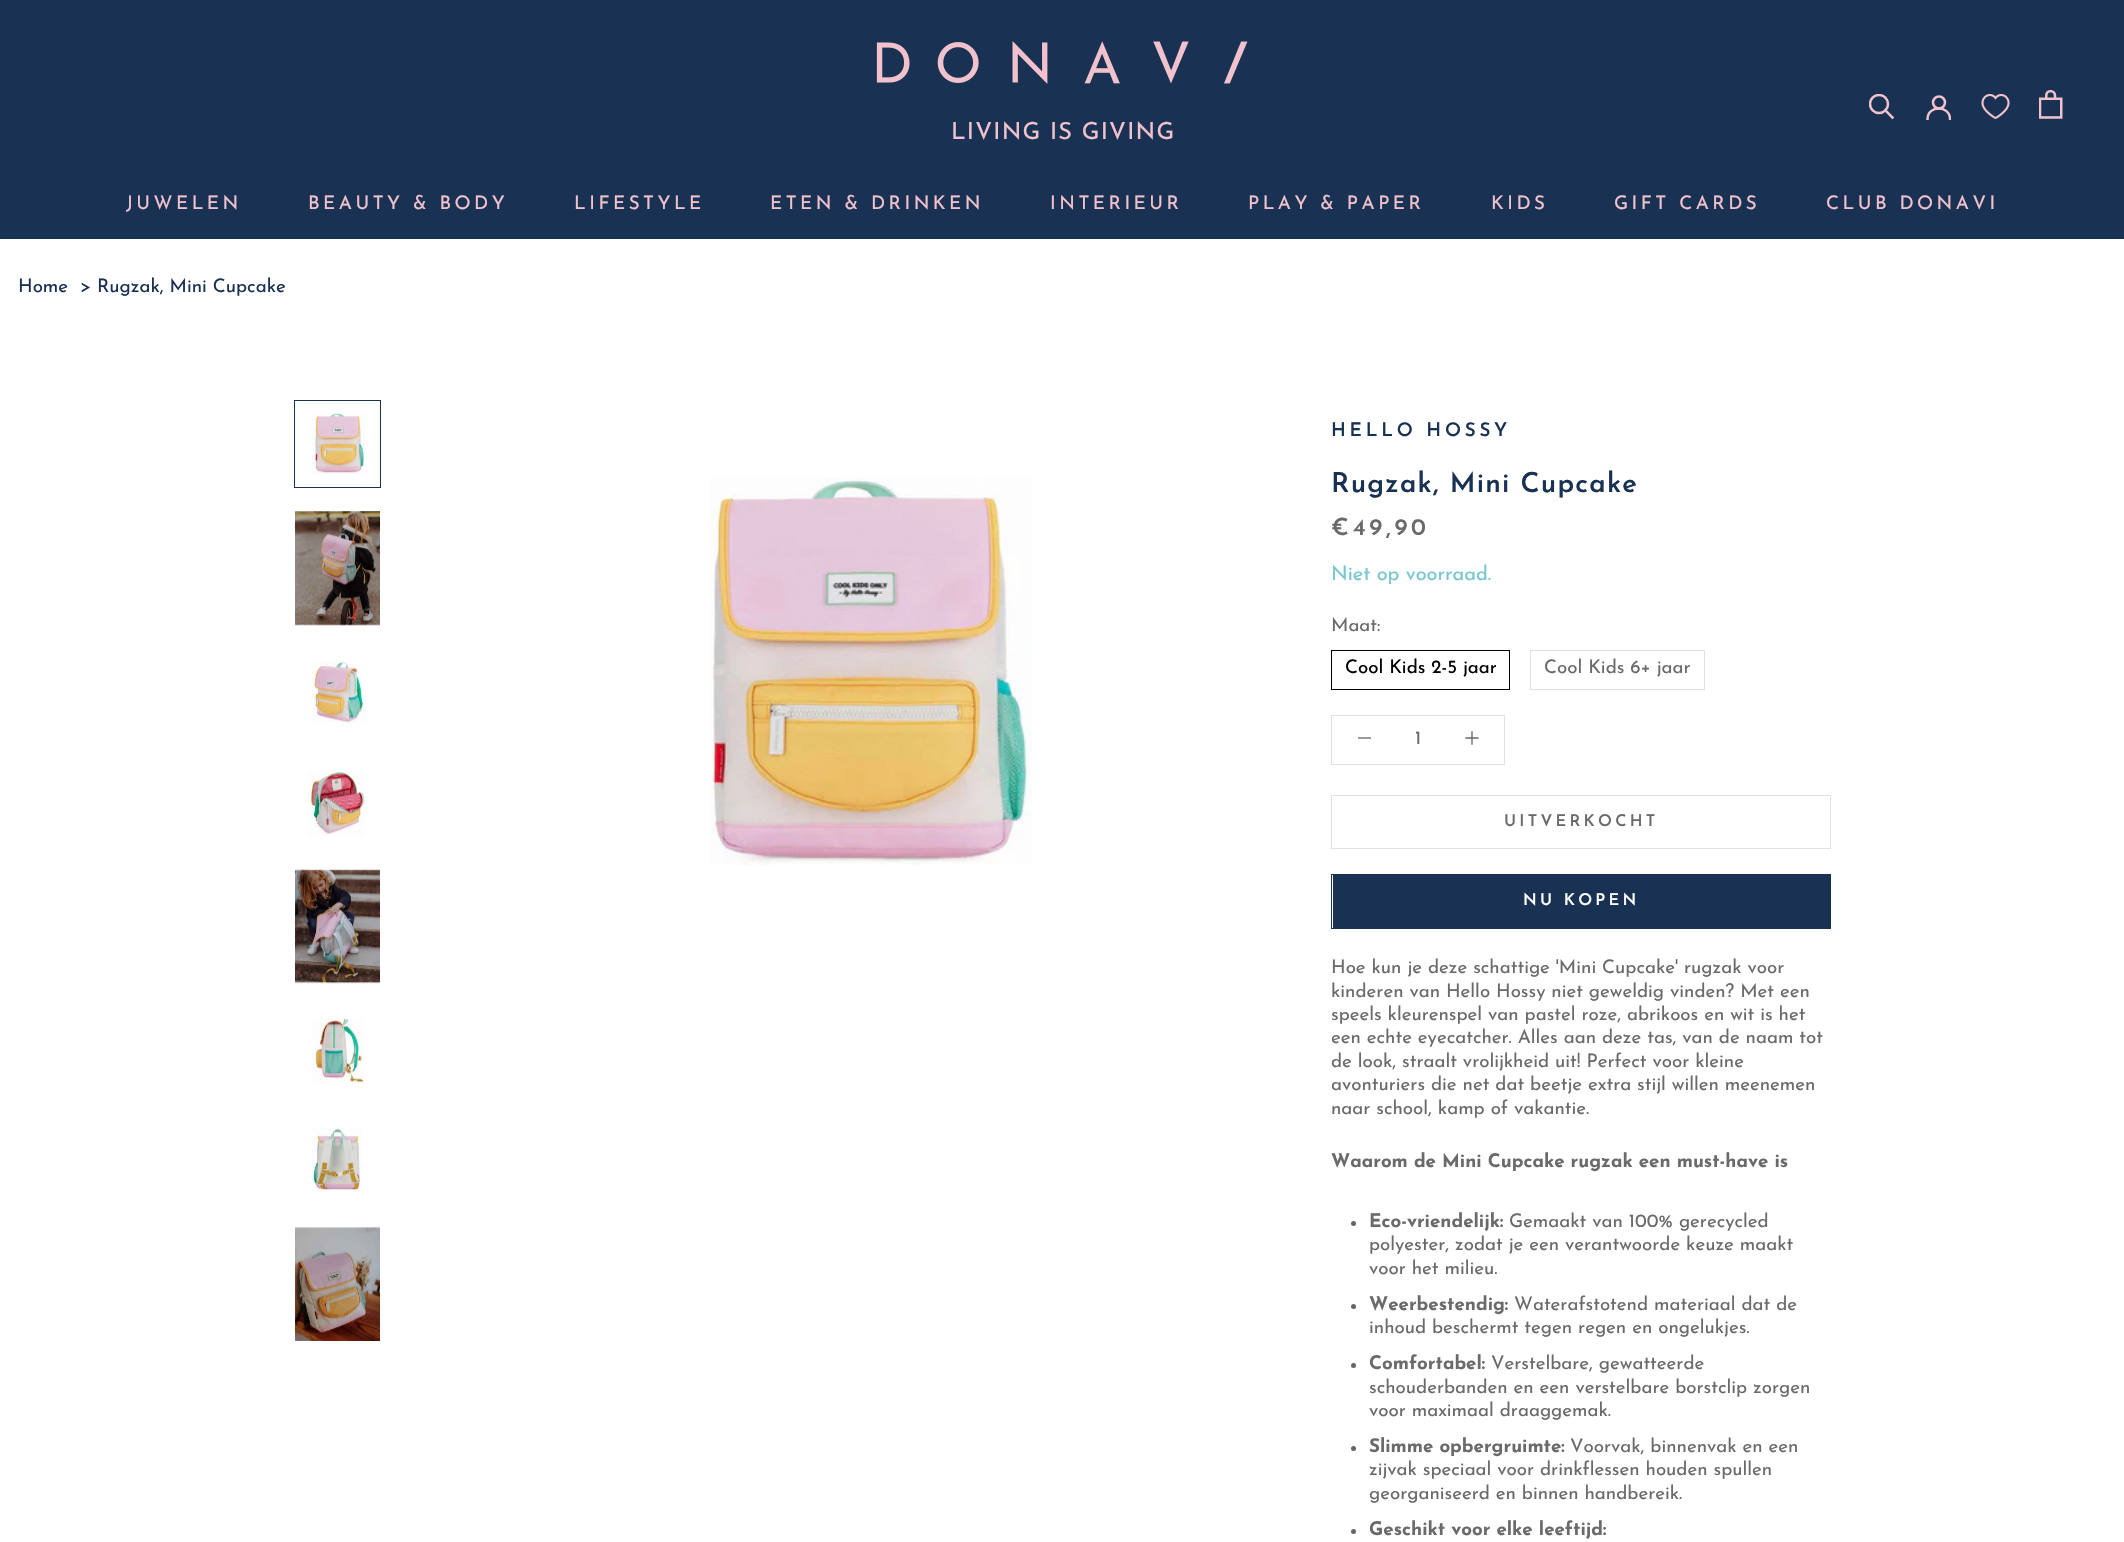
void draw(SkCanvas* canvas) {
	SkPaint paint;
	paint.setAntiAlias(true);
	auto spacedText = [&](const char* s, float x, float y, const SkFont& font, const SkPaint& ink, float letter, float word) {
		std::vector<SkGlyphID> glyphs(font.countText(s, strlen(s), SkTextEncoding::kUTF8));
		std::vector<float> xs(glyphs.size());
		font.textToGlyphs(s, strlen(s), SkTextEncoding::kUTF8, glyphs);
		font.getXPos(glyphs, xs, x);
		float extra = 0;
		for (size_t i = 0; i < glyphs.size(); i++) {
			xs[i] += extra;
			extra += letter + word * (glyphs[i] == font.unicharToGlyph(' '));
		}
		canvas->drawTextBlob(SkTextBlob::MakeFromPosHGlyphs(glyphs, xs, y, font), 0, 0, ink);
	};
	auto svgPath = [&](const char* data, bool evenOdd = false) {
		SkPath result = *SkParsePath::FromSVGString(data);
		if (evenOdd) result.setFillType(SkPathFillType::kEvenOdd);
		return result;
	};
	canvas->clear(0xffffffff);
	paint.setColor(0xff193153);
	canvas->drawRect(SkRect::MakeXYWH(0, 0, 2124, 239), paint);
	paint.setStroke(true);
	paint.setStrokeWidth(2.5);
	paint.setStrokeCap(SkPaint::kSquare_Cap);
	paint.setColor(0xfff1c2cc);
	canvas->drawPath(svgPath("M1892.5 117.5L1885.5 110.5"), paint);
	canvas->save();
	canvas->clipRect(SkRect::MakeXYWH(1869, 94, 26, 26));
	paint.setStrokeCap(SkPaint::kButt_Cap);
	canvas->drawCircle(1879, 104, 9, paint);
	canvas->restore();
	canvas->save();
	canvas->clipRect(SkRect::MakeXYWH(1926, 95, 25, 25));
	paint.setStrokeCap(SkPaint::kSquare_Cap);
	canvas->drawPath(svgPath("M1927.5 119C1927.5 105 1950 105 1950 119"), paint);
	canvas->restore();
	paint.setStrokeCap(SkPaint::kButt_Cap);
	canvas->drawCircle(1939, 102.5, 6, paint);
	canvas->drawImageRect(SkImages::DeferredFromEncodedData(SkData::MakeFromFileName("img1.png")), SkRect::MakeXYWH(1981, 94, 29, 25), SkSamplingOptions());
	canvas->drawImageRect(SkImages::DeferredFromEncodedData(SkData::MakeFromFileName("img2.png")), SkRect::MakeXYWH(2039, 90, 24, 29), SkSamplingOptions());
	canvas->drawImageRect(SkImages::DeferredFromEncodedData(SkData::MakeFromFileName("img3.png")), SkRect::MakeXYWH(876, 41, 372, 43), SkSamplingOptions());
	SkFont f1(fontMgr->matchFamilyStyle("Josefin Sans", SkFontStyle(100, SkFontStyle::kNormal_Width, SkFontStyle::kUpright_Slant)), 23.5);
	f1.setSubpixel(true);
	paint.setStroke(false);
	spacedText("LIVING IS GIVING", 951, 139, f1, paint, 1.2, 0);
	SkFont f2(fontMgr->matchFamilyStyle("Josefin Sans", SkFontStyle(100, SkFontStyle::kNormal_Width, SkFontStyle::kUpright_Slant)), 18.75);
	f2.setSubpixel(true);
	spacedText("JUWELEN", 126, 209, f2, paint, 3.5, 0);
	spacedText("BEAUTY & BODY", 308, 209, f2, paint, 3.5, 0);
	spacedText("LIFESTYLE", 574, 209, f2, paint, 3.5, 0);
	spacedText("ETEN & DRINKEN", 770, 209, f2, paint, 3.5, 0);
	spacedText("INTERIEUR", 1050, 209, f2, paint, 3.5, 0);
	spacedText("PLAY & PAPER", 1248, 209, f2, paint, 3.5, 0);
	spacedText("KIDS", 1491, 209, f2, paint, 3.5, 0);
	spacedText("GIFT CARDS", 1614, 209, f2, paint, 3.5, 0);
	spacedText("CLUB DONAVI", 1826, 209, f2, paint, 3.5, 0);
	paint.setColor(0xff193153);
	canvas->drawString("Home", 18, 292, f2, paint);
	canvas->drawString("> Rugzak, Mini Cupcake", 80, 292, f2, paint);
	paint.setStroke(true);
	paint.setStrokeWidth(1);
	canvas->drawRect(SkRect::MakeXYWH(294.5, 400.5, 86, 87), paint);
	canvas->drawImageRect(SkImages::DeferredFromEncodedData(SkData::MakeFromFileName("img4.png")), SkRect::MakeXYWH(312, 412, 54, 63), SkSamplingOptions());
	canvas->drawImageRect(SkImages::DeferredFromEncodedData(SkData::MakeFromFileName("img5.png")), SkRect::MakeXYWH(295, 511, 85, 115), SkSamplingOptions());
	canvas->drawImageRect(SkImages::DeferredFromEncodedData(SkData::MakeFromFileName("img6.png")), SkRect::MakeXYWH(311, 662, 55, 61), SkSamplingOptions());
	canvas->drawImageRect(SkImages::DeferredFromEncodedData(SkData::MakeFromFileName("img7.png")), SkRect::MakeXYWH(308, 772, 57, 64), SkSamplingOptions());
	canvas->drawImageRect(SkImages::DeferredFromEncodedData(SkData::MakeFromFileName("img8.png")), SkRect::MakeXYWH(295, 869, 85, 115), SkSamplingOptions());
	canvas->drawImageRect(SkImages::DeferredFromEncodedData(SkData::MakeFromFileName("img9.png")), SkRect::MakeXYWH(312, 1018, 52, 66), SkSamplingOptions());
	canvas->drawImageRect(SkImages::DeferredFromEncodedData(SkData::MakeFromFileName("img10.png")), SkRect::MakeXYWH(312, 1127, 50, 64), SkSamplingOptions());
	canvas->drawImageRect(SkImages::DeferredFromEncodedData(SkData::MakeFromFileName("img11.png")), SkRect::MakeXYWH(295, 1227, 85, 114), SkSamplingOptions());
	canvas->drawImageRect(SkImages::DeferredFromEncodedData(SkData::MakeFromFileName("img12.png")), SkRect::MakeXYWH(710, 477, 322, 388), SkSamplingOptions());
	SkFont f3(fontMgr->matchFamilyStyle("Josefin Sans", SkFontStyle(600, SkFontStyle::kNormal_Width, SkFontStyle::kUpright_Slant)), 18.75);
	f3.setSubpixel(true);
	paint.setStroke(false);
	spacedText("HELLO HOSSY", 1331, 436, f3, paint, 3.75, 0);
	SkFont f4(fontMgr->matchFamilyStyle("Josefin Sans", SkFontStyle(600, SkFontStyle::kNormal_Width, SkFontStyle::kUpright_Slant)), 27.5);
	f4.setSubpixel(true);
	spacedText("Rugzak, Mini Cupcake", 1331, 492, f4, paint, 1.2, 0);
	SkFont f5(fontMgr->matchFamilyStyle("Josefin Sans", SkFontStyle(600, SkFontStyle::kNormal_Width, SkFontStyle::kUpright_Slant)), 23.75);
	f5.setSubpixel(true);
	paint.setColor(0xff6a6a6a);
	spacedText("€49,90", 1331, 535, f5, paint, 3.75, 0);
	SkFont f6(fontMgr->matchFamilyStyle("Josefin Sans", SkFontStyle(100, SkFontStyle::kNormal_Width, SkFontStyle::kUpright_Slant)), 20);
	f6.setSubpixel(true);
	paint.setColor(0xff77c7d1);
	canvas->drawString("Niet op voorraad.", 1331, 580, f6, paint);
	paint.setColor(0xff6a6a6a);
	canvas->drawString("Maat:", 1331, 631, f2, paint);
	paint.setStroke(true);
	paint.setColor(0xff000000);
	canvas->drawRect(SkRect::MakeXYWH(1331.5, 650.5, 178, 39), paint);
	paint.setStroke(false);
	canvas->drawString("Cool Kids 2-5 jaar", 1345, 673, f2, paint);
	paint.setStroke(true);
	paint.setColor(0xffdde0e5);
	canvas->drawRect(SkRect::MakeXYWH(1530.5, 650.5, 174, 39), paint);
	paint.setStroke(false);
	paint.setColor(0xff6a6a6a);
	canvas->drawString("Cool Kids 6+ jaar", 1544, 673, f2, paint);
	paint.setStroke(true);
	paint.setColor(0xffdde0e5);
	canvas->drawRect(SkRect::MakeXYWH(1331.5, 715.5, 173, 49), paint);
	canvas->save();
	canvas->clipRect(SkRect::MakeXYWH(1358, 731, 13, 14));
	paint.setStrokeWidth(1.3);
	paint.setStrokeCap(SkPaint::kSquare_Cap);
	paint.setColor(0xff656565);
	canvas->drawPath(svgPath("M1358.5 738H1370.5"), paint);
	canvas->restore();
	paint.setStroke(false);
	paint.setColor(0xff6a6a6a);
	canvas->drawString("1", 1415, 744, f2, paint);
	paint.setStroke(true);
	paint.setColor(0xff656565);
	canvas->drawPath(svgPath("M1472 732V744M1466 738H1478"), paint);
	paint.setStrokeWidth(1);
	paint.setStrokeCap(SkPaint::kButt_Cap);
	paint.setColor(0xffe1e1e1);
	canvas->drawRect(SkRect::MakeXYWH(1331.5, 795.5, 499, 53), paint);
	SkFont f7(fontMgr->matchFamilyStyle("Josefin Sans", SkFontStyle(600, SkFontStyle::kNormal_Width, SkFontStyle::kUpright_Slant)), 16.25);
	f7.setSubpixel(true);
	paint.setStroke(false);
	paint.setColor(0xff6a6a6a);
	spacedText("UITVERKOCHT", 1504, 826, f7, paint, 3.25, 0);
	paint.setStroke(true);
	paint.setColor(0xff193153);
	canvas->drawRect(SkRect::MakeXYWH(1331.5, 874.5, 499, 54), paint);
	paint.setStroke(false);
	canvas->drawRect(SkRect::MakeXYWH(1333, 875, 497, 53), paint);
	paint.setColor(0xffffffff);
	spacedText("NU KOPEN", 1523, 905, f7, paint, 3.25, 0);
	paint.setColor(0xff6a6a6a);
	canvas->drawString("Hoe kun je deze schattige 'Mini Cupcake' rugzak voor", 1331, 973, f2, paint);
	canvas->drawString("kinderen van Hello Hossy niet geweldig vinden? Met een", 1331, 997, f2, paint);
	canvas->drawString("speels kleurenspel van pastel roze, abrikoos en wit is het", 1331, 1020, f2, paint);
	canvas->drawString("een echte eyecatcher. Alles aan deze tas, van de naam tot", 1331, 1043, f2, paint);
	canvas->drawString("de look, straalt vrolijkheid uit! Perfect voor kleine", 1331, 1067, f2, paint);
	canvas->drawString("avonturiers die net dat beetje extra stijl willen meenemen", 1331, 1090, f2, paint);
	canvas->drawString("naar school, kamp of vakantie.", 1331, 1114, f2, paint);
	SkFont f8(fontMgr->matchFamilyStyle("Josefin Sans", SkFontStyle::Bold()), 18.75);
	f8.setSubpixel(true);
	canvas->drawString("Waarom de Mini Cupcake rugzak een must-have is", 1331, 1167, f8, paint);
	paint.setColor(0xff656565);
	canvas->drawCircle(1353.5, 1223.5, 2.5, paint);
	paint.setColor(0xff6a6a6a);
	canvas->drawString("Eco-vriendelijk:", 1369, 1227, f8, paint);
	canvas->drawString("Gemaakt van 100% gerecycled", 1509, 1227, f2, paint);
	canvas->drawString("polyester, zodat je een verantwoorde keuze maakt", 1369, 1250, f2, paint);
	canvas->drawString("voor het milieu.", 1369, 1274, f2, paint);
	paint.setColor(0xff656565);
	canvas->drawCircle(1353.5, 1306.5, 2.5, paint);
	paint.setColor(0xff6a6a6a);
	canvas->drawString("Weerbestendig:", 1369, 1310, f8, paint);
	canvas->drawString("Waterafstotend materiaal dat de", 1514, 1310, f2, paint);
	canvas->drawString("inhoud beschermt tegen regen en ongelukjes.", 1369, 1333, f2, paint);
	paint.setColor(0xff656565);
	canvas->drawCircle(1353.5, 1365.5, 2.5, paint);
	paint.setColor(0xff6a6a6a);
	canvas->drawString("Comfortabel:", 1369, 1369, f8, paint);
	canvas->drawString("Verstelbare, gewatteerde", 1491, 1369, f2, paint);
	canvas->drawString("schouderbanden en een verstelbare borstclip zorgen", 1369, 1393, f2, paint);
	canvas->drawString("voor maximaal draaggemak.", 1369, 1416, f2, paint);
	paint.setColor(0xff656565);
	canvas->drawCircle(1353.5, 1448.5, 2.5, paint);
	paint.setColor(0xff6a6a6a);
	canvas->drawString("Slimme opbergruimte:", 1369, 1452, f8, paint);
	canvas->drawString("Voorvak, binnenvak en een", 1570, 1452, f2, paint);
	canvas->drawString("zijvak speciaal voor drinkflessen houden spullen", 1369, 1475, f2, paint);
	canvas->drawString("georganiseerd en binnen handbereik.", 1369, 1499, f2, paint);
	paint.setColor(0xff656565);
	canvas->drawCircle(1353.5, 1531.5, 2.5, paint);
	paint.setColor(0xff6a6a6a);
	canvas->drawString("Geschikt voor elke leeftijd:", 1369, 1535, f8, paint);
}
